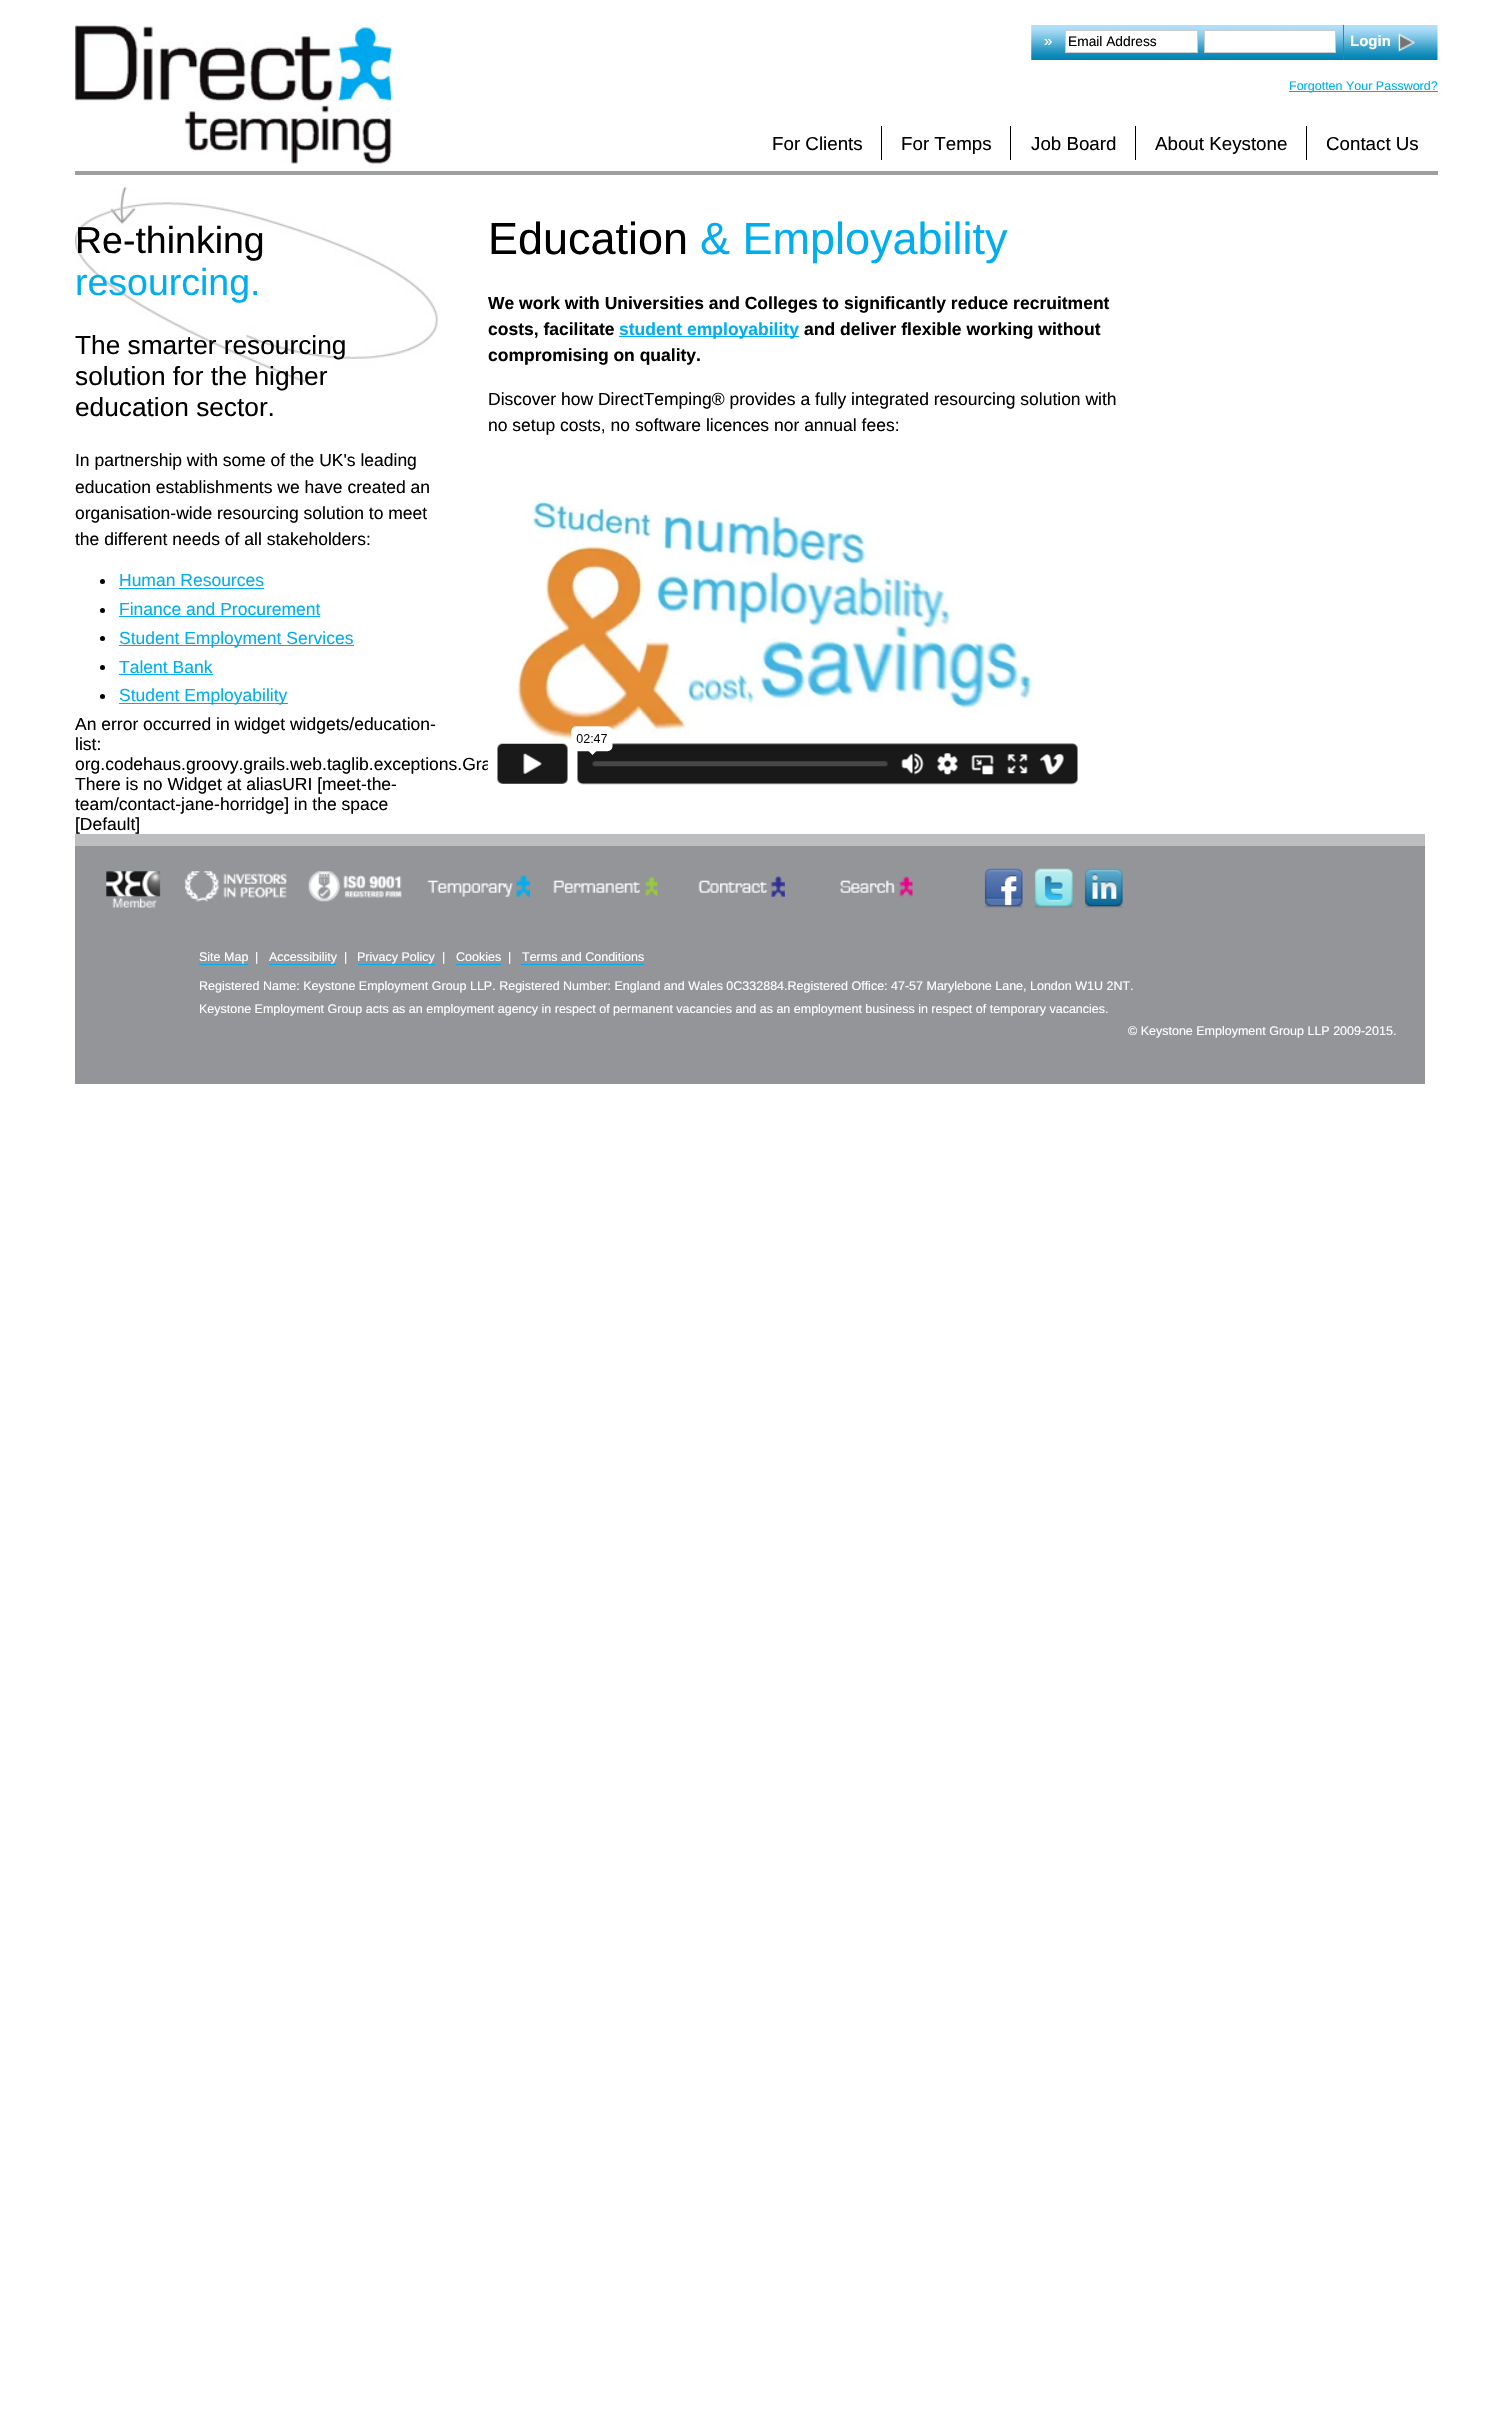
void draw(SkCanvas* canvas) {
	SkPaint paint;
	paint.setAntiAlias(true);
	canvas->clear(0xffffffff);
	paint.setColor(0xff9e9e9e);
	canvas->drawRect(SkRect::MakeXYWH(75, 171, 1363, 4), paint);
	canvas->drawImageRect(SkImages::DeferredFromEncodedData(SkData::MakeFromFileName("img1.png")), SkRect::MakeXYWH(75, 25, 317, 139), SkSamplingOptions());
	canvas->drawImageRect(SkImages::DeferredFromEncodedData(SkData::MakeFromFileName("img2.png")), SkRect::MakeXYWH(1031, 25, 407, 35), SkSamplingOptions());
	SkFont f1(fontMgr->matchFamilyStyle("Liberation Sans", SkFontStyle::Normal()), 15);
	f1.setSubpixel(true);
	paint.setColor(0xffffffff);
	canvas->drawString("»", 1044, 46, f1, paint);
	canvas->drawRect(SkRect::MakeXYWH(1065.5, 30.5, 132, 22), paint);
	paint.setStroke(true);
	paint.setStrokeWidth(1);
	paint.setColor(0xffcccccc);
	canvas->drawRect(SkRect::MakeXYWH(1065.5, 30.5, 132, 22), paint);
	SkFont f2(fontMgr->matchFamilyStyle("Liberation Sans", SkFontStyle::Normal()), 13.75);
	f2.setSubpixel(true);
	paint.setStroke(false);
	paint.setColor(0xff000000);
	canvas->drawString("Email Address", 1068, 46, f2, paint);
	paint.setColor(0xffffffff);
	canvas->drawRect(SkRect::MakeXYWH(1204.5, 30.5, 131, 22), paint);
	paint.setStroke(true);
	paint.setColor(0xffcccccc);
	canvas->drawRect(SkRect::MakeXYWH(1204.5, 30.5, 131, 22), paint);
	canvas->drawImageRect(SkImages::DeferredFromEncodedData(SkData::MakeFromFileName("img3.png")), SkRect::MakeXYWH(1398, 33, 17, 19), SkSamplingOptions());
	paint.setStroke(false);
	paint.setColor(0xff0598c4);
	canvas->drawRect(SkRect::MakeXYWH(1343, 25, 1, 35), paint);
	SkFont f3(fontMgr->matchFamilyStyle("Liberation Sans", SkFontStyle::Bold()), 15);
	f3.setSubpixel(true);
	paint.setColor(0xffffffff);
	canvas->drawString("Login", 1350, 46, f3, paint);
	paint.setColor(0xff00aeef);
	canvas->drawRect(SkRect::MakeXYWH(1289, 91, 149, 1), paint);
	SkFont f4(fontMgr->matchFamilyStyle("Liberation Sans", SkFontStyle::Normal()), 12.5);
	f4.setSubpixel(true);
	canvas->drawString("Forgotten Your Password?", 1289, 90, f4, paint);
	SkFont f5(fontMgr->matchFamilyStyle("Liberation Sans", SkFontStyle::Normal()), 18.75);
	f5.setSubpixel(true);
	paint.setColor(0xff000000);
	canvas->drawString("For Clients", 772, 150, f5, paint);
	canvas->drawRect(SkRect::MakeXYWH(881, 126, 1, 34), paint);
	canvas->drawString("For Temps", 901, 150, f5, paint);
	canvas->drawRect(SkRect::MakeXYWH(1010, 126, 1, 34), paint);
	canvas->drawString("Job Board", 1031, 150, f5, paint);
	canvas->drawRect(SkRect::MakeXYWH(1135, 126, 1, 34), paint);
	canvas->drawString("About Keystone", 1155, 150, f5, paint);
	canvas->drawRect(SkRect::MakeXYWH(1306, 126, 1, 34), paint);
	canvas->drawString("Contact Us", 1326, 150, f5, paint);
	canvas->drawImageRect(SkImages::DeferredFromEncodedData(SkData::MakeFromFileName("img4.png")), SkRect::MakeXYWH(75, 187, 363, 196), SkSamplingOptions());
	SkFont f6(fontMgr->matchFamilyStyle("Liberation Sans", SkFontStyle::Normal()), 37.5);
	f6.setSubpixel(true);
	canvas->drawString("Re-thinking", 75, 253, f6, paint);
	paint.setColor(0xff00aeef);
	canvas->drawString("resourcing.", 75, 295, f6, paint);
	SkFont f7(fontMgr->matchFamilyStyle("Liberation Sans", SkFontStyle::Normal()), 26.25);
	f7.setSubpixel(true);
	paint.setColor(0xff000000);
	canvas->drawString("The smarter resourcing", 75, 354, f7, paint);
	canvas->drawString("solution for the higher", 75, 385, f7, paint);
	canvas->drawString("education sector.", 75, 416, f7, paint);
	SkFont f8(fontMgr->matchFamilyStyle("Liberation Sans", SkFontStyle::Normal()), 17.5);
	f8.setSubpixel(true);
	canvas->drawString("In partnership with some of the UK's leading", 75, 466, f8, paint);
	canvas->drawString("education establishments we have created an", 75, 493, f8, paint);
	canvas->drawString("organisation-wide resourcing solution to meet", 75, 519, f8, paint);
	canvas->drawString("the different needs of all stakeholders:", 75, 545, f8, paint);
	canvas->drawCircle(102.5, 581.5, 2.5, paint);
	paint.setColor(0xff00aeef);
	canvas->drawString("Human Resources", 119, 586, f8, paint);
	canvas->drawRect(SkRect::MakeXYWH(119, 588, 145, 1), paint);
	paint.setColor(0xff000000);
	canvas->drawCircle(102.5, 610.5, 2.5, paint);
	paint.setColor(0xff00aeef);
	canvas->drawString("Finance and Procurement", 119, 615, f8, paint);
	canvas->drawRect(SkRect::MakeXYWH(119, 616, 201, 1), paint);
	paint.setColor(0xff000000);
	canvas->drawCircle(102.5, 638.5, 2.5, paint);
	paint.setColor(0xff00aeef);
	canvas->drawRect(SkRect::MakeXYWH(119, 645, 235, 1), paint);
	canvas->drawString("Student Employment Services", 119, 644, f8, paint);
	paint.setColor(0xff000000);
	canvas->drawCircle(102.5, 667.5, 2.5, paint);
	paint.setColor(0xff00aeef);
	canvas->drawString("Talent Bank", 119, 673, f8, paint);
	canvas->drawRect(SkRect::MakeXYWH(119, 674, 94, 1), paint);
	paint.setColor(0xff000000);
	canvas->drawCircle(102.5, 696.5, 2.5, paint);
	paint.setColor(0xff00aeef);
	canvas->drawRect(SkRect::MakeXYWH(119, 703, 169, 1), paint);
	canvas->drawString("Student Employability", 119, 701, f8, paint);
	paint.setColor(0xff000000);
	canvas->drawString("An error occurred in widget widgets/education-", 75, 730, f8, paint);
	canvas->drawString("list:", 75, 750, f8, paint);
	canvas->drawString("org.codehaus.groovy.grails.web.taglib.exceptions.Gra", 75, 770, f8, paint);
	canvas->drawString("There is no Widget at aliasURI [meet-the-", 75, 790, f8, paint);
	canvas->drawString("team/contact-jane-horridge] in the space", 75, 810, f8, paint);
	canvas->drawString("[Default]", 75, 830, f8, paint);
	SkFont f9(fontMgr->matchFamilyStyle("Liberation Sans", SkFontStyle::Normal()), 45);
	f9.setSubpixel(true);
	canvas->drawString("Education", 488, 254, f9, paint);
	paint.setColor(0xff00aeef);
	canvas->drawString("& Employability", 700, 254, f9, paint);
	SkFont f10(fontMgr->matchFamilyStyle("Liberation Sans", SkFontStyle::Bold()), 17.5);
	f10.setSubpixel(true);
	paint.setColor(0xff000000);
	canvas->drawString("We work with Universities and Colleges to significantly reduce recruitment", 488, 309, f10, paint);
	canvas->drawString("costs, facilitate", 488, 335, f10, paint);
	paint.setColor(0xff00aeef);
	canvas->drawRect(SkRect::MakeXYWH(619, 336, 180, 1), paint);
	canvas->drawString("student employability", 619, 335, f10, paint);
	paint.setColor(0xff000000);
	canvas->drawString("and deliver flexible working without", 804, 335, f10, paint);
	canvas->drawString("compromising on quality.", 488, 361, f10, paint);
	canvas->drawString("Discover how DirectTemping® provides a fully integrated resourcing solution with", 488, 405, f8, paint);
	canvas->drawString("no setup costs, no software licences nor annual fees:", 488, 431, f8, paint);
	canvas->drawImageRect(SkImages::DeferredFromEncodedData(SkData::MakeFromFileName("img5.png")), SkRect::MakeXYWH(487, 495, 591, 290), SkSamplingOptions());
	paint.setColor(0xff939598);
	canvas->drawRect(SkRect::MakeXYWH(75, 846, 1350, 238), paint);
	paint.setColor(0xffbcbec0);
	canvas->drawRect(SkRect::MakeXYWH(75, 834, 1350, 12), paint);
	canvas->drawImageRect(SkImages::DeferredFromEncodedData(SkData::MakeFromFileName("img6.png")), SkRect::MakeXYWH(106, 871, 296, 37), SkSamplingOptions());
	canvas->drawImageRect(SkImages::DeferredFromEncodedData(SkData::MakeFromFileName("img7.png")), SkRect::MakeXYWH(427, 875, 103, 23), SkSamplingOptions());
	canvas->drawImageRect(SkImages::DeferredFromEncodedData(SkData::MakeFromFileName("img8.png")), SkRect::MakeXYWH(553, 876, 105, 20), SkSamplingOptions());
	canvas->drawImageRect(SkImages::DeferredFromEncodedData(SkData::MakeFromFileName("img9.png")), SkRect::MakeXYWH(698, 876, 87, 21), SkSamplingOptions());
	canvas->drawImageRect(SkImages::DeferredFromEncodedData(SkData::MakeFromFileName("img10.png")), SkRect::MakeXYWH(840, 876, 73, 21), SkSamplingOptions());
	canvas->drawImageRect(SkImages::DeferredFromEncodedData(SkData::MakeFromFileName("img11.png")), SkRect::MakeXYWH(984, 868, 39, 40), SkSamplingOptions());
	canvas->drawImageRect(SkImages::DeferredFromEncodedData(SkData::MakeFromFileName("img12.png")), SkRect::MakeXYWH(1034, 868, 39, 40), SkSamplingOptions());
	canvas->drawImageRect(SkImages::DeferredFromEncodedData(SkData::MakeFromFileName("img13.png")), SkRect::MakeXYWH(1084, 868, 39, 40), SkSamplingOptions());
	paint.setColor(0xffffffff);
	canvas->drawString("Site Map", 199, 961, f4, paint);
	paint.setColor(0xff00aeef);
	canvas->drawRect(SkRect::MakeXYWH(199, 964, 49, 1), paint);
	paint.setColor(0xffffffff);
	canvas->drawString("|", 255, 961, f4, paint);
	canvas->drawString("Accessibility", 269, 961, f4, paint);
	paint.setColor(0xff00aeef);
	canvas->drawRect(SkRect::MakeXYWH(269, 964, 67, 1), paint);
	paint.setColor(0xffffffff);
	canvas->drawString("|", 344, 961, f4, paint);
	canvas->drawString("Privacy Policy", 357, 961, f4, paint);
	paint.setColor(0xff00aeef);
	canvas->drawRect(SkRect::MakeXYWH(358, 964, 77, 1), paint);
	paint.setColor(0xffffffff);
	canvas->drawString("|", 442, 961, f4, paint);
	canvas->drawString("Cookies", 456, 961, f4, paint);
	paint.setColor(0xff00aeef);
	canvas->drawRect(SkRect::MakeXYWH(456, 964, 45, 1), paint);
	paint.setColor(0xffffffff);
	canvas->drawString("|", 508, 961, f4, paint);
	canvas->drawString("Terms and Conditions", 522, 961, f4, paint);
	paint.setColor(0xff00aeef);
	canvas->drawRect(SkRect::MakeXYWH(521, 964, 123, 1), paint);
	paint.setColor(0xffffffff);
	canvas->drawString("Registered Name: Keystone Employment Group LLP. Registered Number: England and Wales 0C332884.Registered Office: 47-57 Marylebone Lane, London W1U 2NT.", 199, 990, f4, paint);
	canvas->drawString("Keystone Employment Group acts as an employment agency in respect of permanent vacancies and as an employment business in respect of temporary vacancies.", 199, 1013, f4, paint);
	canvas->drawString("© Keystone Employment Group LLP 2009-2015.", 1128, 1035, f4, paint);
}
